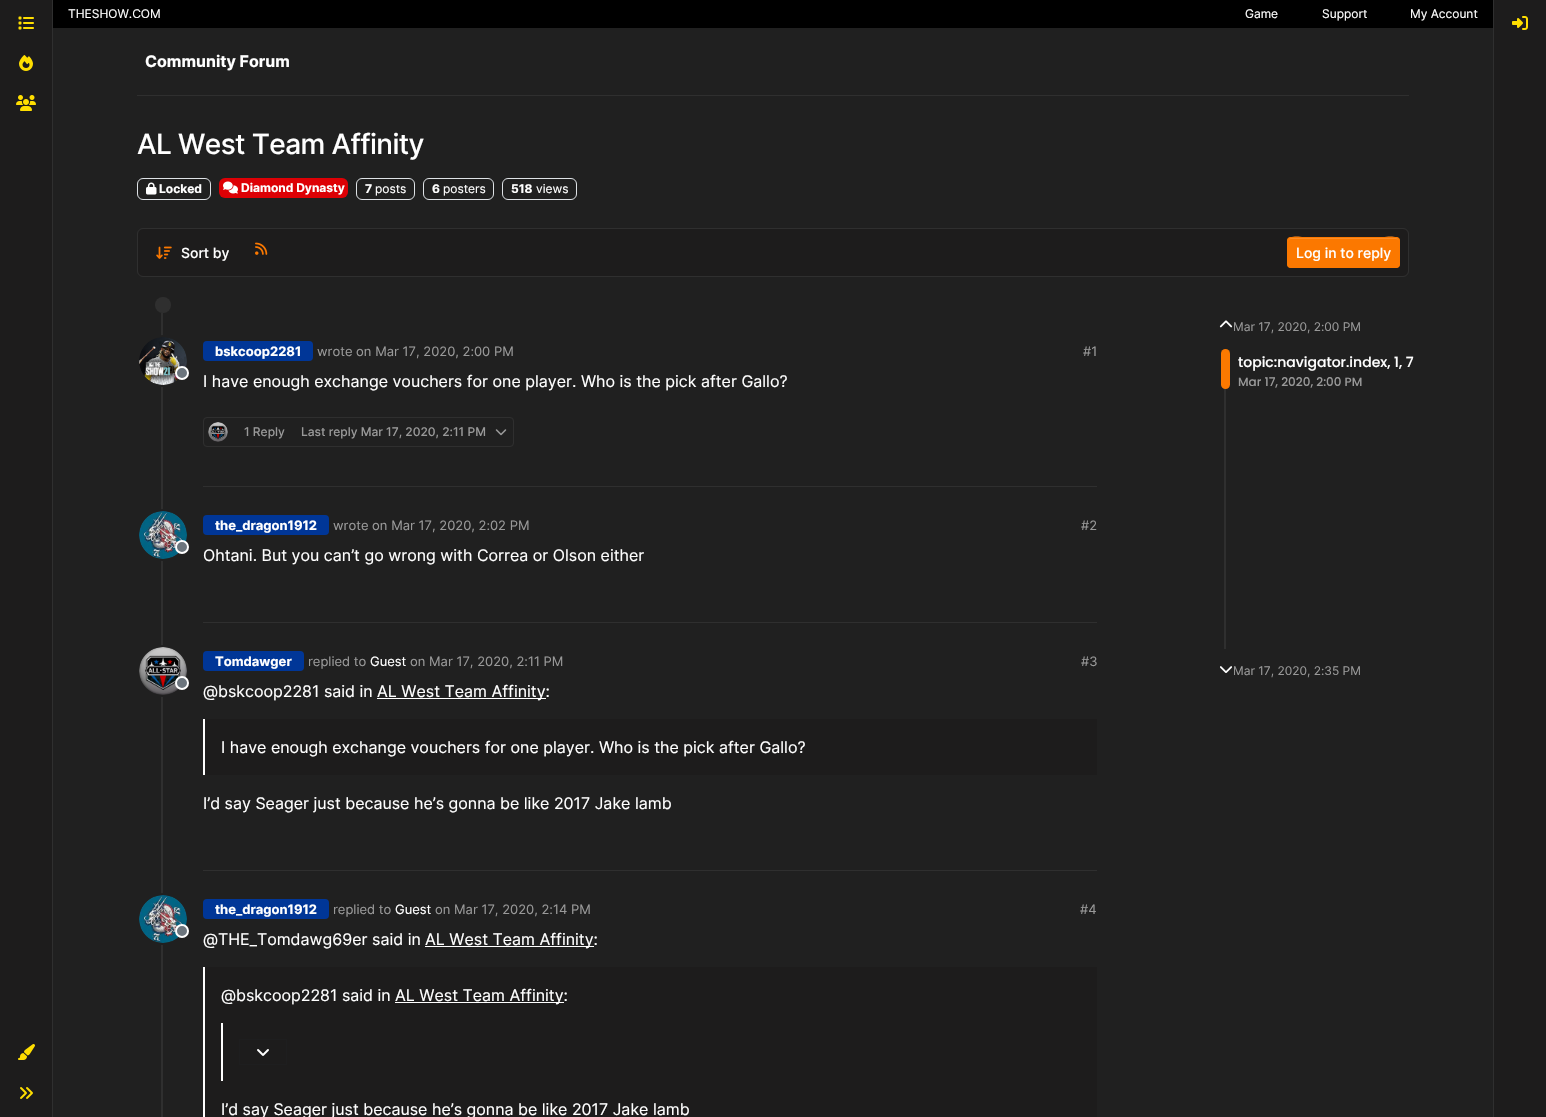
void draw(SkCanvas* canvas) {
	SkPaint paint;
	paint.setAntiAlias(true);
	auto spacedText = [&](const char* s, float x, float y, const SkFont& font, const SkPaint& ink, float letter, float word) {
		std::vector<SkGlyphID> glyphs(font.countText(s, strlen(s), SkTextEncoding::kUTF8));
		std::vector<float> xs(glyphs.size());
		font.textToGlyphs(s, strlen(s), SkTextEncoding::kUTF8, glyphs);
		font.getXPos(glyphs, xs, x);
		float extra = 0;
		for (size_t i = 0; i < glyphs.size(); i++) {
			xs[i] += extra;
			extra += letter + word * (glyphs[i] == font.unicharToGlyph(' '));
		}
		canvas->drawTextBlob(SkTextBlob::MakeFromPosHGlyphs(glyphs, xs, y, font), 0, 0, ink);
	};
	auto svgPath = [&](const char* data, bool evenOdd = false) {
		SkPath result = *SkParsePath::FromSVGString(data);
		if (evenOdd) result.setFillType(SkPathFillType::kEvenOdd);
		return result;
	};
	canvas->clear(0xff202020);
	paint.setColor(0xff1d1c1c);
	canvas->drawRect(SkRect::MakeXYWH(0, 0, 52, 1117), paint);
	paint.setColor(0xff2f2f2f);
	canvas->drawRect(SkRect::MakeXYWH(52, 0, 1, 1117), paint);
	canvas->drawImageRect(SkImages::DeferredFromEncodedData(SkData::MakeFromFileName("img1.png")), SkRect::MakeXYWH(18, 16, 16, 14), SkSamplingOptions());
	canvas->drawImageRect(SkImages::DeferredFromEncodedData(SkData::MakeFromFileName("img2.png")), SkRect::MakeXYWH(19, 55, 14, 16), SkSamplingOptions());
	canvas->drawImageRect(SkImages::DeferredFromEncodedData(SkData::MakeFromFileName("img3.png")), SkRect::MakeXYWH(16, 95, 20, 16), SkSamplingOptions());
	canvas->drawImageRect(SkImages::DeferredFromEncodedData(SkData::MakeFromFileName("img4.png")), SkRect::MakeXYWH(18, 1044, 17, 16), SkSamplingOptions());
	canvas->drawImageRect(SkImages::DeferredFromEncodedData(SkData::MakeFromFileName("img5.png")), SkRect::MakeXYWH(20, 1087, 13, 12), SkSamplingOptions());
	paint.setColor(0xff000000);
	canvas->drawRect(SkRect::MakeXYWH(53, 0, 1440, 28), paint);
	SkFont f1(fontMgr->matchFamilyStyle("Inter", SkFontStyle::Normal()), 12);
	f1.setSubpixel(true);
	paint.setColor(0xffffffff);
	canvas->drawString("THESHOW.COM", 68, 18, f1, paint);
	canvas->drawString("Game", 1245, 18, f1, paint);
	canvas->drawString("Support", 1322, 18, f1, paint);
	canvas->drawString("My Account", 1410, 18, f1, paint);
	paint.setColor(0xff2f2f2f);
	canvas->drawRect(SkRect::MakeXYWH(137, 95, 1272, 1), paint);
	SkFont f2(fontMgr->matchFamilyStyle("Inter", SkFontStyle::Bold()), 16);
	f2.setSubpixel(true);
	paint.setColor(0xffffffff);
	canvas->drawString("Community Forum", 145, 67, f2, paint);
	SkFont f3(fontMgr->matchFamilyStyle("Inter", SkFontStyle(500, SkFontStyle::kNormal_Width, SkFontStyle::kUpright_Slant)), 28);
	f3.setSubpixel(true);
	spacedText("AL West Team Affinity", 137, 154, f3, paint, -0.6, 0);
	paint.setStroke(true);
	paint.setStrokeWidth(1);
	paint.setColor(0xffdee2e6);
	canvas->drawRoundRect(SkRect::MakeXYWH(137.5, 178.5, 73, 21), 5.5, 5.5, paint);
	canvas->drawImageRect(SkImages::DeferredFromEncodedData(SkData::MakeFromFileName("img6.png")), SkRect::MakeXYWH(146, 182, 11, 13), SkSamplingOptions());
	SkFont f4(fontMgr->matchFamilyStyle("Inter", SkFontStyle::Bold()), 12);
	f4.setSubpixel(true);
	paint.setStroke(false);
	paint.setColor(0xffffffff);
	canvas->drawString("Locked", 159, 193, f4, paint);
	paint.setColor(0xffdd0005);
	canvas->drawRoundRect(SkRect::MakeXYWH(219, 178, 129, 20), 6, 6, paint);
	canvas->drawImageRect(SkImages::DeferredFromEncodedData(SkData::MakeFromFileName("img7.png")), SkRect::MakeXYWH(223, 181, 15, 13), SkSamplingOptions());
	paint.setColor(0xffffffff);
	canvas->drawString("Diamond Dynasty", 241, 192, f4, paint);
	paint.setStroke(true);
	paint.setColor(0xffdee2e6);
	canvas->drawRoundRect(SkRect::MakeXYWH(356.5, 178.5, 58, 21), 5.5, 5.5, paint);
	paint.setStroke(false);
	paint.setColor(0xffffffff);
	canvas->drawString("7", 365, 193, f4, paint);
	canvas->drawString("posts", 375, 193, f1, paint);
	paint.setStroke(true);
	paint.setColor(0xffdee2e6);
	canvas->drawRoundRect(SkRect::MakeXYWH(423.5, 178.5, 70, 21), 5.5, 5.5, paint);
	paint.setStroke(false);
	paint.setColor(0xffffffff);
	canvas->drawString("6", 432, 193, f4, paint);
	canvas->drawString("posters", 443, 193, f1, paint);
	paint.setStroke(true);
	paint.setColor(0xffdee2e6);
	canvas->drawRoundRect(SkRect::MakeXYWH(502.5, 178.5, 74, 21), 5.5, 5.5, paint);
	paint.setStroke(false);
	paint.setColor(0xffffffff);
	canvas->drawString("518", 511, 193, f4, paint);
	canvas->drawString("views", 536, 193, f1, paint);
	paint.setColor(0xff1d1c1c);
	canvas->drawRoundRect(SkRect::MakeXYWH(137.5, 228.5, 1271, 48), 5.5, 5.5, paint);
	paint.setStroke(true);
	paint.setColor(0xff2f2f2f);
	canvas->drawRoundRect(SkRect::MakeXYWH(137.5, 228.5, 1271, 48), 5.5, 5.5, paint);
	canvas->drawImageRect(SkImages::DeferredFromEncodedData(SkData::MakeFromFileName("img8.png")), SkRect::MakeXYWH(156, 246, 16, 13), SkSamplingOptions());
	SkFont f5(fontMgr->matchFamilyStyle("Inter", SkFontStyle(500, SkFontStyle::kNormal_Width, SkFontStyle::kUpright_Slant)), 14);
	f5.setSubpixel(true);
	paint.setStroke(false);
	paint.setColor(0xffffffff);
	canvas->drawString("Sort by", 181, 258, f5, paint);
	canvas->drawImageRect(SkImages::DeferredFromEncodedData(SkData::MakeFromFileName("img9.png")), SkRect::MakeXYWH(255, 242, 13, 13), SkSamplingOptions());
	paint.setColor(0xfffb7800);
	canvas->drawRoundRect(SkRect::MakeXYWH(1287, 237, 113, 31), 4, 4, paint);
	paint.setColor(0xfffc8c26);
	canvas->drawPath(svgPath("M1291 239H1396C1398 239 1399 240 1399 242C1399 233 1381 238 1378 238H1308C1306 238 1288 233 1288 242C1288 240 1289 239 1291 239Z"), paint);
	paint.setStroke(true);
	paint.setColor(0xfffb7800);
	canvas->drawRoundRect(SkRect::MakeXYWH(1287.5, 237.5, 112, 30), 3.5, 3.5, paint);
	paint.setStroke(false);
	paint.setColor(0xffffffff);
	canvas->drawString("Log in to reply", 1296, 258, f5, paint);
	paint.setColor(0xff2f2f2f);
	canvas->drawRect(SkRect::MakeXYWH(161, 313, 2, 804), paint);
	canvas->drawCircle(163, 305, 8, paint);
	paint.setColor(0xff202020);
	canvas->drawCircle(163, 361, 25, paint);
	paint.setStroke(true);
	paint.setStrokeWidth(2);
	canvas->drawCircle(163, 361, 25, paint);
	canvas->drawImageRect(SkImages::DeferredFromEncodedData(SkData::MakeFromFileName("img10.png")), SkRect::MakeXYWH(139, 337, 48, 48), SkSamplingOptions());
	paint.setStroke(false);
	paint.setColor(0xff6c757d);
	canvas->drawCircle(182, 373, 6, paint);
	paint.setStroke(true);
	paint.setColor(0xffffffff);
	canvas->drawCircle(182, 373, 6, paint);
	paint.setStroke(false);
	paint.setColor(0xff003697);
	canvas->drawRoundRect(SkRect::MakeXYWH(203, 341, 110, 20), 4, 4, paint);
	SkFont f6(fontMgr->matchFamilyStyle("Inter", SkFontStyle::Bold()), 13);
	f6.setSubpixel(true);
	paint.setColor(0xffffffff);
	canvas->drawString("bskcoop2281", 215, 356, f6, paint);
	SkFont f7(fontMgr->matchFamilyStyle("Inter", SkFontStyle::Normal()), 13);
	f7.setSubpixel(true);
	paint.setColor(0xff999999);
	canvas->drawString("wrote on Mar 17, 2020, 2:00 PM", 317, 356, f7, paint);
	canvas->drawString("#1", 1083, 356, f7, paint);
	SkFont f8(fontMgr->matchFamilyStyle("Inter", SkFontStyle::Normal()), 16);
	f8.setSubpixel(true);
	paint.setColor(0xffffffff);
	canvas->drawString("I have enough exchange vouchers for one player. Who is the pick after Gallo?", 203, 387, f8, paint);
	paint.setColor(0xff2f2f2f);
	canvas->drawRect(SkRect::MakeXYWH(203, 486, 894, 1), paint);
	paint.setStroke(true);
	paint.setStrokeWidth(1);
	canvas->drawRoundRect(SkRect::MakeXYWH(203.5, 417.5, 310, 29), 3.5, 3.5, paint);
	canvas->drawImageRect(SkImages::DeferredFromEncodedData(SkData::MakeFromFileName("img11.png")), SkRect::MakeXYWH(208, 422, 20, 20), SkSamplingOptions());
	SkFont f9(fontMgr->matchFamilyStyle("Inter", SkFontStyle(500, SkFontStyle::kNormal_Width, SkFontStyle::kUpright_Slant)), 12);
	f9.setSubpixel(true);
	paint.setStroke(false);
	paint.setColor(0xff999999);
	canvas->drawString("1 Reply", 244, 436, f9, paint);
	canvas->drawString("Last reply Mar 17, 2020, 2:11 PM", 301, 436, f9, paint);
	canvas->drawImageRect(SkImages::DeferredFromEncodedData(SkData::MakeFromFileName("img12.png")), SkRect::MakeXYWH(495, 429, 12, 7), SkSamplingOptions());
	paint.setColor(0xff202020);
	canvas->drawCircle(163, 535, 25, paint);
	paint.setStroke(true);
	paint.setStrokeWidth(2);
	canvas->drawCircle(163, 535, 25, paint);
	canvas->drawImageRect(SkImages::DeferredFromEncodedData(SkData::MakeFromFileName("img13.png")), SkRect::MakeXYWH(139, 511, 48, 48), SkSamplingOptions());
	paint.setStroke(false);
	paint.setColor(0xff6c757d);
	canvas->drawCircle(182, 547, 6, paint);
	paint.setStroke(true);
	paint.setColor(0xffffffff);
	canvas->drawCircle(182, 547, 6, paint);
	paint.setStroke(false);
	paint.setColor(0xff003697);
	canvas->drawRoundRect(SkRect::MakeXYWH(203, 515, 126, 20), 4, 4, paint);
	paint.setColor(0xffffffff);
	canvas->drawString("the_dragon1912", 215, 530, f6, paint);
	paint.setColor(0xff999999);
	canvas->drawString("wrote on Mar 17, 2020, 2:02 PM", 333, 530, f7, paint);
	canvas->drawString("#2", 1081, 530, f7, paint);
	paint.setColor(0xffffffff);
	canvas->drawString("Ohtani. But you can’t go wrong with Correa or Olson either", 203, 561, f8, paint);
	paint.setColor(0xff2f2f2f);
	canvas->drawRect(SkRect::MakeXYWH(203, 622, 894, 1), paint);
	paint.setColor(0xff202020);
	canvas->drawCircle(163, 671, 25, paint);
	paint.setStroke(true);
	canvas->drawCircle(163, 671, 25, paint);
	canvas->drawImageRect(SkImages::DeferredFromEncodedData(SkData::MakeFromFileName("img14.png")), SkRect::MakeXYWH(139, 647, 48, 48), SkSamplingOptions());
	paint.setStroke(false);
	paint.setColor(0xff6c757d);
	canvas->drawCircle(182, 683, 6, paint);
	paint.setStroke(true);
	paint.setColor(0xffffffff);
	canvas->drawCircle(182, 683, 6, paint);
	paint.setStroke(false);
	paint.setColor(0xff003697);
	canvas->drawRoundRect(SkRect::MakeXYWH(203, 651, 101, 20), 4, 4, paint);
	paint.setColor(0xffffffff);
	canvas->drawString("Tomdawger", 215, 666, f6, paint);
	paint.setColor(0xff999999);
	canvas->drawString("replied to", 308, 666, f7, paint);
	paint.setColor(0xffffffff);
	canvas->drawString("Guest", 370, 666, f7, paint);
	paint.setColor(0xff999999);
	canvas->drawString("on Mar 17, 2020, 2:11 PM", 410, 666, f7, paint);
	canvas->drawString("#3", 1081, 666, f7, paint);
	paint.setColor(0xffffffff);
	canvas->drawString("@bskcoop2281 said in", 203, 697, f8, paint);
	canvas->drawRect(SkRect::MakeXYWH(377, 698, 169, 1), paint);
	canvas->drawString("AL West Team Affinity:", 377, 697, f8, paint);
	paint.setColor(0xff1d1c1c);
	canvas->drawRect(SkRect::MakeXYWH(205, 719, 892, 56), paint);
	paint.setColor(0xffffffff);
	canvas->drawRect(SkRect::MakeXYWH(203, 719, 2, 56), paint);
	canvas->drawString("I have enough exchange vouchers for one player. Who is the pick after Gallo?", 221, 753, f8, paint);
	canvas->drawString("I’d say Seager just because he’s gonna be like 2017 Jake lamb", 203, 809, f8, paint);
	paint.setColor(0xff2f2f2f);
	canvas->drawRect(SkRect::MakeXYWH(203, 870, 894, 1), paint);
	paint.setColor(0xff202020);
	canvas->drawCircle(163, 919, 25, paint);
	paint.setStroke(true);
	canvas->drawCircle(163, 919, 25, paint);
	canvas->drawImageRect(SkImages::DeferredFromEncodedData(SkData::MakeFromFileName("img13.png")), SkRect::MakeXYWH(139, 895, 48, 48), SkSamplingOptions());
	paint.setStroke(false);
	paint.setColor(0xff6c757d);
	canvas->drawCircle(182, 931, 6, paint);
	paint.setStroke(true);
	paint.setColor(0xffffffff);
	canvas->drawCircle(182, 931, 6, paint);
	paint.setStroke(false);
	paint.setColor(0xff003697);
	canvas->drawRoundRect(SkRect::MakeXYWH(203, 899, 126, 20), 4, 4, paint);
	paint.setColor(0xffffffff);
	canvas->drawString("the_dragon1912", 215, 914, f6, paint);
	paint.setColor(0xff999999);
	canvas->drawString("replied to", 333, 914, f7, paint);
	paint.setColor(0xffffffff);
	canvas->drawString("Guest", 395, 914, f7, paint);
	paint.setColor(0xff999999);
	canvas->drawString("on Mar 17, 2020, 2:14 PM", 435, 914, f7, paint);
	canvas->drawString("#4", 1080, 914, f7, paint);
	paint.setColor(0xffffffff);
	canvas->drawString("@THE_Tomdawg69er said in", 203, 945, f8, paint);
	canvas->drawRect(SkRect::MakeXYWH(425, 946, 169, 1), paint);
	canvas->drawString("AL West Team Affinity:", 425, 945, f8, paint);
	paint.setColor(0xff1d1c1c);
	canvas->drawRect(SkRect::MakeXYWH(205, 967, 892, 150), paint);
	paint.setColor(0xffffffff);
	canvas->drawRect(SkRect::MakeXYWH(203, 967, 2, 150), paint);
	canvas->drawString("@bskcoop2281 said in", 221, 1001, f8, paint);
	canvas->drawRect(SkRect::MakeXYWH(395, 1002, 169, 1), paint);
	canvas->drawString("AL West Team Affinity:", 395, 1001, f8, paint);
	canvas->drawRect(SkRect::MakeXYWH(221, 1023, 2, 58), paint);
	paint.setStroke(true);
	paint.setStrokeWidth(1);
	paint.setColor(0xff1e1e1f);
	canvas->drawRect(SkRect::MakeXYWH(239.5, 1039.5, 47, 25), paint);
	canvas->drawImageRect(SkImages::DeferredFromEncodedData(SkData::MakeFromFileName("img15.png")), SkRect::MakeXYWH(257, 1049, 12, 7), SkSamplingOptions());
	paint.setStroke(false);
	paint.setColor(0xffffffff);
	canvas->drawString("I’d say Seager just because he’s gonna be like 2017 Jake lamb", 221, 1115, f8, paint);
	canvas->drawImageRect(SkImages::DeferredFromEncodedData(SkData::MakeFromFileName("img16.png")), SkRect::MakeXYWH(1219, 320, 14, 8), SkSamplingOptions());
	paint.setColor(0xff999999);
	canvas->drawString("Mar 17, 2020, 2:00 PM", 1233, 331, f1, paint);
	paint.setColor(0xff2f2f2f);
	canvas->drawRect(SkRect::MakeXYWH(1224, 349, 2, 300), paint);
	paint.setColor(0xfffb7900);
	canvas->drawRoundRect(SkRect::MakeXYWH(1221, 349, 9, 40), 4.5, 4.5, paint);
	SkFont f10(fontMgr->matchFamilyStyle("Poppins", SkFontStyle(500, SkFontStyle::kNormal_Width, SkFontStyle::kUpright_Slant)), 14);
	f10.setSubpixel(true);
	paint.setColor(0xffffffff);
	canvas->drawString("topic:navigator.index, 1, 7", 1238, 367, f10, paint);
	SkFont f11(fontMgr->matchFamilyStyle("Poppins", SkFontStyle(500, SkFontStyle::kNormal_Width, SkFontStyle::kUpright_Slant)), 12);
	f11.setSubpixel(true);
	paint.setColor(0xff999999);
	canvas->drawString("Mar 17, 2020, 2:00 PM", 1238, 386, f11, paint);
	canvas->drawImageRect(SkImages::DeferredFromEncodedData(SkData::MakeFromFileName("img17.png")), SkRect::MakeXYWH(1220, 666, 12, 7), SkSamplingOptions());
	canvas->drawString("Mar 17, 2020, 2:35 PM", 1233, 675, f1, paint);
	paint.setColor(0xff1d1c1c);
	canvas->drawRect(SkRect::MakeXYWH(1494, 0, 52, 1117), paint);
	paint.setColor(0xff2f2f2f);
	canvas->drawRect(SkRect::MakeXYWH(1493, 0, 1, 1117), paint);
	canvas->drawImageRect(SkImages::DeferredFromEncodedData(SkData::MakeFromFileName("img18.png")), SkRect::MakeXYWH(1512, 16, 16, 14), SkSamplingOptions());
}
